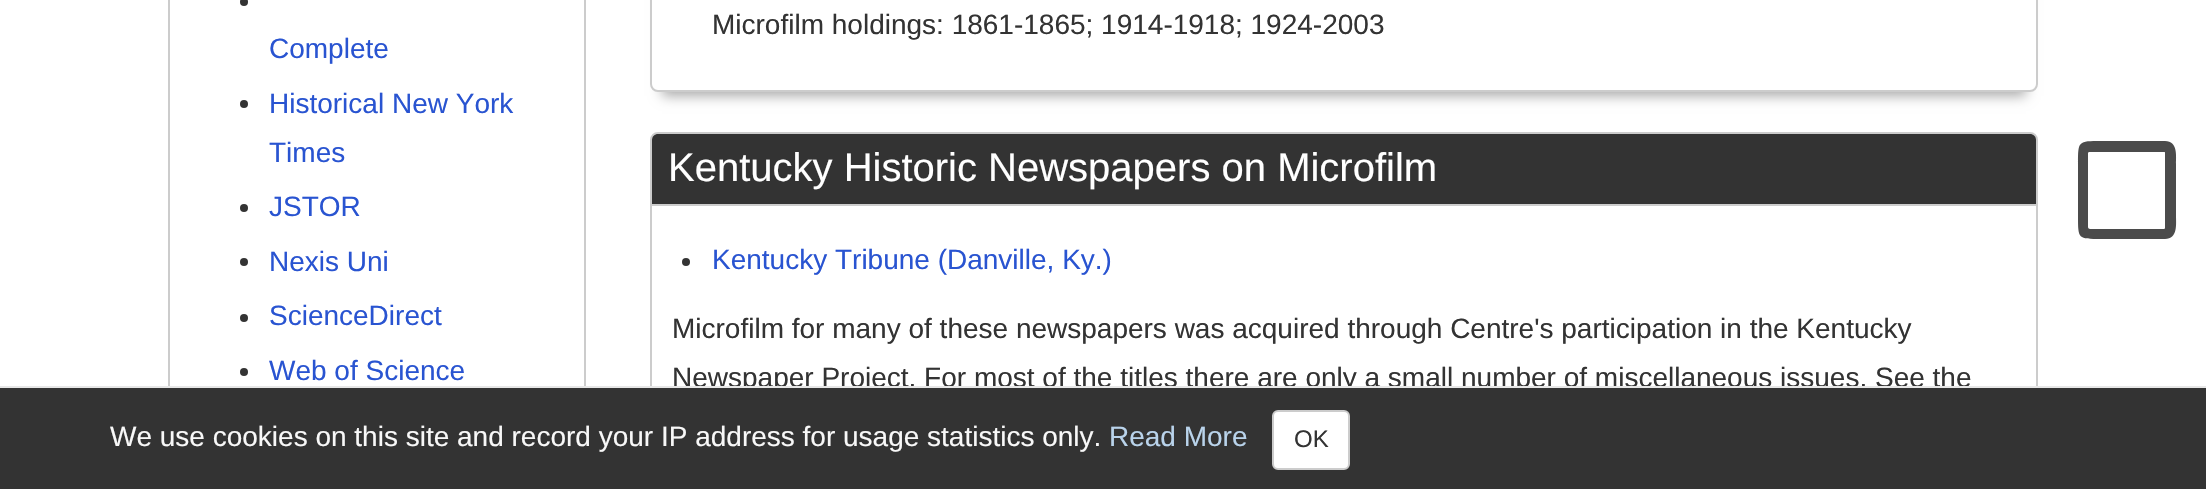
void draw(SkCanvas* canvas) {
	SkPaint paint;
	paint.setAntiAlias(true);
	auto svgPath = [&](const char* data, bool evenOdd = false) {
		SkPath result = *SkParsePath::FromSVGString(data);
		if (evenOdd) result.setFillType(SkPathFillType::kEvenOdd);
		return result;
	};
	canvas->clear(0xffffffff);
	paint.setStroke(true);
	paint.setStrokeWidth(2);
	paint.setColor(0xffcccccc);
	canvas->drawRect(SkRect::MakeXYWH(169, -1, 416, 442), paint);
	paint.setStroke(false);
	paint.setColor(0xff333333);
	canvas->drawCircle(244, 2, 4, paint);
	SkFont f1(fontMgr->matchFamilyStyle("Liberation Sans", SkFontStyle::Normal()), 28);
	f1.setSubpixel(true);
	paint.setColor(0xff2954d1);
	canvas->drawString("Complete", 269, 58, f1, paint);
	paint.setColor(0xff333333);
	canvas->drawCircle(244, 104, 4, paint);
	paint.setColor(0xff2954d1);
	canvas->drawString("Historical New York", 269, 113, f1, paint);
	canvas->drawString("Times", 269, 162, f1, paint);
	paint.setColor(0xff333333);
	canvas->drawCircle(244, 208, 4, paint);
	paint.setColor(0xff2954d1);
	canvas->drawString("JSTOR", 269, 216, f1, paint);
	paint.setColor(0xff333333);
	canvas->drawCircle(244, 262, 4, paint);
	paint.setColor(0xff2954d1);
	canvas->drawString("Nexis Uni", 269, 271, f1, paint);
	paint.setColor(0xff333333);
	canvas->drawCircle(244, 318, 4, paint);
	paint.setColor(0xff2954d1);
	canvas->drawString("ScienceDirect", 269, 325, f1, paint);
	paint.setColor(0xff333333);
	canvas->drawCircle(244, 372, 4, paint);
	paint.setColor(0xff2954d1);
	canvas->drawString("Web of Science", 269, 380, f1, paint);
	paint.setColor(0xffaaaaaa);
	paint.setMaskFilter(SkMaskFilter::MakeBlur(kNormal_SkBlurStyle, 6));
	canvas->drawRect(SkRect::MakeXYWH(662, -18, 1364, 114), paint);
	paint.setMaskFilter(nullptr);
	paint.setColor(0xffffffff);
	canvas->drawRoundRect(SkRect::MakeXYWH(651, -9, 1386, 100), 7, 7, paint);
	paint.setStroke(true);
	paint.setColor(0xffcccccc);
	canvas->drawRoundRect(SkRect::MakeXYWH(651, -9, 1386, 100), 7, 7, paint);
	paint.setStroke(false);
	paint.setColor(0xff333333);
	canvas->drawString("Microfilm holdings: 1861-1865; 1914-1918; 1924-2003", 712, 34, f1, paint);
	paint.setStroke(true);
	paint.setColor(0xffcccccc);
	canvas->drawRoundRect(SkRect::MakeXYWH(651, 133, 1386, 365), 7, 7, paint);
	paint.setStroke(false);
	paint.setColor(0xff333333);
	canvas->drawPath(svgPath("M658 134H2030C2033.5 134 2036 136.5 2036 140V206H652V140C652 136.5 654.5 134 658 134Z"), paint);
	paint.setColor(0xffcccccc);
	canvas->drawRect(SkRect::MakeXYWH(652, 204, 1384, 2), paint);
	SkFont f2(fontMgr->matchFamilyStyle("Liberation Sans", SkFontStyle::Normal()), 40);
	f2.setSubpixel(true);
	paint.setColor(0xffffffff);
	canvas->drawString("Kentucky Historic Newspapers on Microfilm", 668, 181, f2, paint);
	paint.setColor(0xff333333);
	canvas->drawCircle(686, 262, 4, paint);
	paint.setColor(0xff2954d1);
	canvas->drawString("Kentucky Tribune (Danville, Ky.)", 712, 269, f1, paint);
	paint.setColor(0xff333333);
	canvas->drawString("Microfilm for many of these newspapers was acquired through Centre's participation in the Kentucky", 672, 338, f1, paint);
	canvas->drawString("Newspaper Project. For most of the titles there are only a small number of miscellaneous issues. See the", 672, 387, f1, paint);
	paint.setColor(0xff4b4b4b);
	canvas->drawPath(svgPath("M2165 141C2178 141 2176 156 2176 164V216C2176 224 2178 239 2165 239H2101C2078 239 2078 239 2078 216V164C2078 141 2078 141 2101 141ZM2164 229C2165 229 2165 228 2165 227V153C2165 152 2165 152 2164 152H2090C2089 152 2088 152 2088 153V227C2088 228 2089 229 2090 229Z"), paint);
	paint.setColor(0xff333333);
	canvas->drawRect(SkRect::MakeXYWH(0, 388, 2206, 101), paint);
	paint.setColor(0xffe7e7e7);
	canvas->drawRect(SkRect::MakeXYWH(0, 386, 2206, 2), paint);
	paint.setColor(0xfff8f8f8);
	canvas->drawString("We use cookies on this site and record your IP address for usage statistics only.", 110, 446, f1, paint);
	paint.setColor(0xffb9d3eb);
	canvas->drawString("Read More", 1109, 446, f1, paint);
	paint.setColor(0xffffffff);
	canvas->drawRoundRect(SkRect::MakeXYWH(1273, 411, 76, 58), 5, 5, paint);
	paint.setStroke(true);
	paint.setColor(0xffcccccc);
	canvas->drawRoundRect(SkRect::MakeXYWH(1273, 411, 76, 58), 5, 5, paint);
	SkFont f3(fontMgr->matchFamilyStyle("Liberation Sans", SkFontStyle::Normal()), 24);
	f3.setSubpixel(true);
	paint.setStroke(false);
	paint.setColor(0xff333333);
	canvas->drawString("OK", 1294, 447, f3, paint);
}
